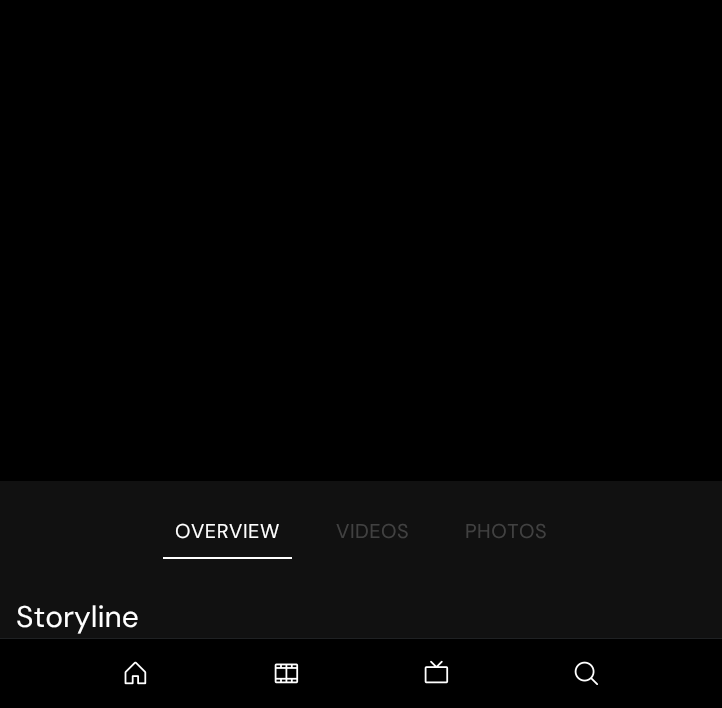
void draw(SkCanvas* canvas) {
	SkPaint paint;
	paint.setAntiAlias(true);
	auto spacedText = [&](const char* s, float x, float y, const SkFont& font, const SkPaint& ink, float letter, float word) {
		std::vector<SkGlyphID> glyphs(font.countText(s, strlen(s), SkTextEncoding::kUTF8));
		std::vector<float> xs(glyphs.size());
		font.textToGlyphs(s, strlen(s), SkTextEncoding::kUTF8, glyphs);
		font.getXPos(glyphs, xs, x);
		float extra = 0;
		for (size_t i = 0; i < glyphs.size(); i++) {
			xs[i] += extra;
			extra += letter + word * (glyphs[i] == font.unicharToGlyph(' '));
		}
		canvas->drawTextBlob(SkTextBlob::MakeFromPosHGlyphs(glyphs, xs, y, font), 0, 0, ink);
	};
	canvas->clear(0xff111111);
	paint.setColor(0xff000000);
	canvas->drawRect(SkRect::MakeXYWH(0, 0, 722, 481), paint);
	paint.setColor(0xffffffff);
	canvas->drawRect(SkRect::MakeXYWH(163, 557, 129, 2), paint);
	SkFont f1(fontMgr->matchFamilyStyle("DM Sans", SkFontStyle::Normal()), 20);
	f1.setSubpixel(true);
	spacedText("OVERVIEW", 175, 538, f1, paint, 0.5, 0);
	paint.setColor(0xff414141);
	spacedText("VIDEOS", 336, 538, f1, paint, 0.5, 0);
	spacedText("PHOTOS", 465, 538, f1, paint, 0.5, 0);
	SkFont f2(fontMgr->matchFamilyStyle("DM Sans", SkFontStyle::Normal()), 30);
	f2.setSubpixel(true);
	paint.setColor(0xffffffff);
	canvas->drawString("Storyline", 16, 627, f2, paint);
	paint.setColor(0xff000000);
	canvas->drawRect(SkRect::MakeXYWH(0, 639, 722, 69), paint);
	paint.setColor(0xff1f2123);
	canvas->drawRect(SkRect::MakeXYWH(0, 638, 722, 1), paint);
	canvas->drawImageRect(SkImages::DeferredFromEncodedData(SkData::MakeFromFileName("img1.png")), SkRect::MakeXYWH(124, 661, 23, 24), SkSamplingOptions());
	canvas->drawImageRect(SkImages::DeferredFromEncodedData(SkData::MakeFromFileName("img2.png")), SkRect::MakeXYWH(274, 663, 25, 21), SkSamplingOptions());
	canvas->drawImageRect(SkImages::DeferredFromEncodedData(SkData::MakeFromFileName("img3.png")), SkRect::MakeXYWH(424, 660, 25, 24), SkSamplingOptions());
	canvas->drawImageRect(SkImages::DeferredFromEncodedData(SkData::MakeFromFileName("img4.png")), SkRect::MakeXYWH(574, 661, 25, 24), SkSamplingOptions());
}
